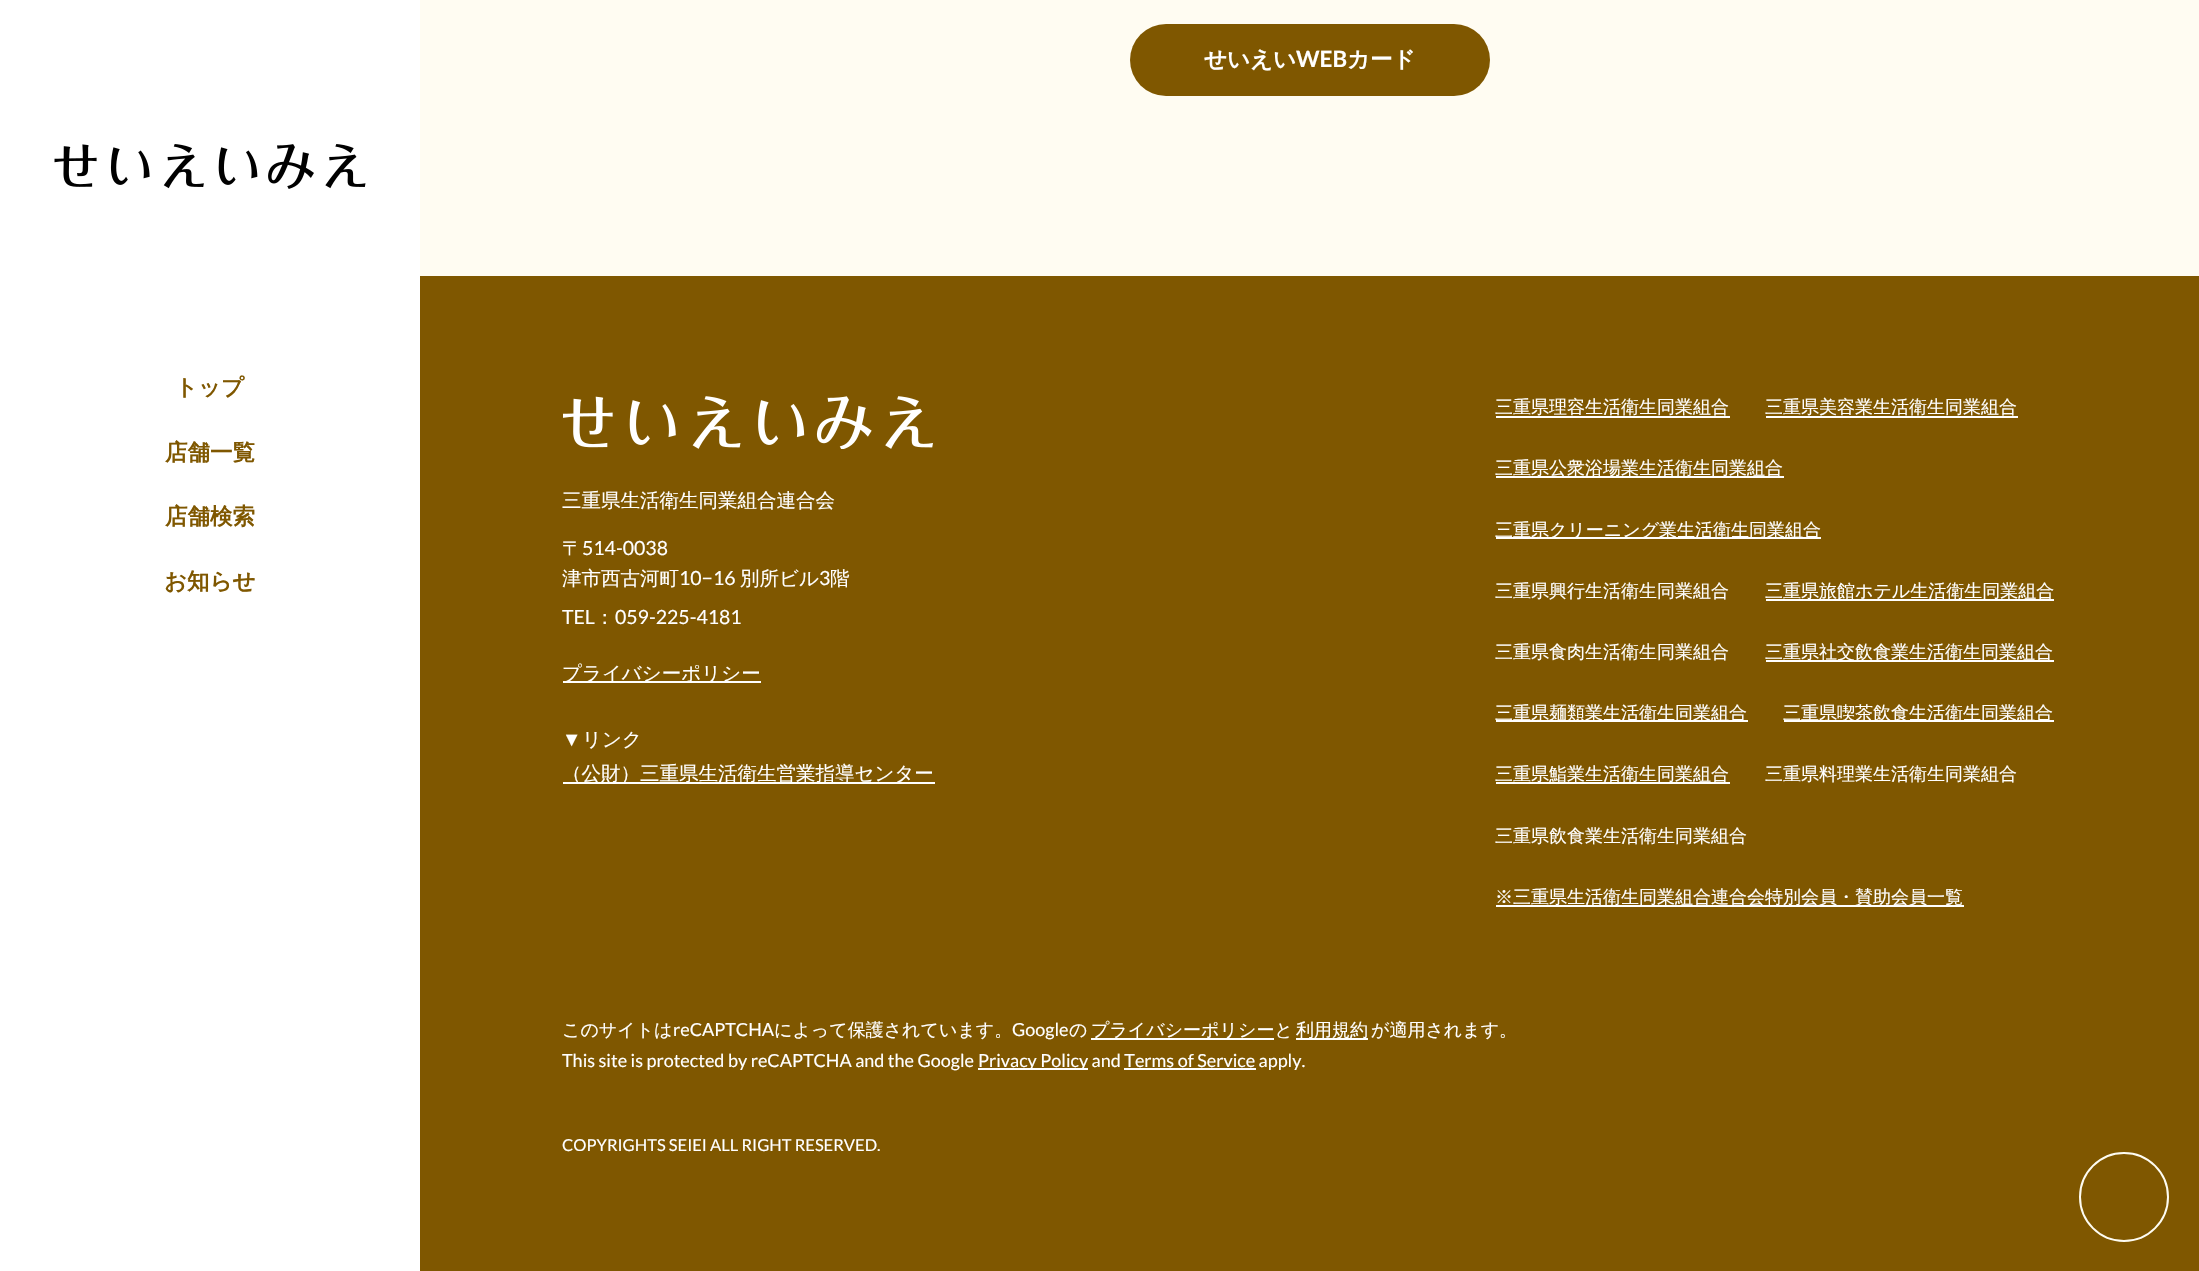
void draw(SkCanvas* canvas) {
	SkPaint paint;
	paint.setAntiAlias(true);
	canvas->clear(0xfffffcf2);
	paint.setColor(0xffffffff);
	canvas->drawRect(SkRect::MakeXYWH(0, 0, 420, 1271), paint);
	canvas->drawImageRect(SkImages::DeferredFromEncodedData(SkData::MakeFromFileName("img1.png")), SkRect::MakeXYWH(54, 144, 312, 45), SkSamplingOptions());
	SkFont f1(fontMgr->matchFamilyStyle("WenQuanYi Zen Hei", SkFontStyle::Bold()), 22.5);
	f1.setSubpixel(true);
	paint.setColor(0xff7f5700);
	canvas->drawString("トップ", 175, 395, f1, paint);
	canvas->drawString("店舗一覧", 165, 460, f1, paint);
	canvas->drawString("店舗検索", 165, 524, f1, paint);
	canvas->drawString("お知らせ", 164, 589, f1, paint);
	canvas->drawRoundRect(SkRect::MakeXYWH(1130, 24, 360, 72), 36, 36, paint);
	paint.setColor(0xffffffff);
	canvas->drawString("せいえい", 1204, 67, f1, paint);
	SkFont f2(fontMgr->matchFamilyStyle("Lato", SkFontStyle::Bold()), 22.5);
	f2.setSubpixel(true);
	canvas->drawString("WEB", 1296, 67, f2, paint);
	canvas->drawString("カード", 1347, 67, f1, paint);
	paint.setColor(0xff7f5700);
	canvas->drawRect(SkRect::MakeXYWH(420, 276, 1779, 995), paint);
	canvas->drawImageRect(SkImages::DeferredFromEncodedData(SkData::MakeFromFileName("img2.png")), SkRect::MakeXYWH(563, 396, 370, 53), SkSamplingOptions());
	SkFont f3(fontMgr->matchFamilyStyle("WenQuanYi Zen Hei", SkFontStyle(500, SkFontStyle::kNormal_Width, SkFontStyle::kUpright_Slant)), 19.5);
	f3.setSubpixel(true);
	paint.setColor(0xffffffff);
	canvas->drawString("三重県生活衛生同業組合連合会", 562, 507, f3, paint);
	canvas->drawString("〒", 562, 555, f3, paint);
	SkFont f4(fontMgr->matchFamilyStyle("Lato", SkFontStyle::Normal()), 19.5);
	f4.setSubpixel(true);
	canvas->drawString("514-0038", 582, 555, f4, paint);
	canvas->drawString("津市西古河町", 562, 585, f3, paint);
	canvas->drawString("10−16", 679, 585, f4, paint);
	canvas->drawString("別所ビル", 740, 585, f3, paint);
	canvas->drawString("3", 819, 585, f4, paint);
	canvas->drawString("階", 830, 585, f3, paint);
	canvas->drawString("TEL", 562, 624, f4, paint);
	canvas->drawString("：", 595, 624, f3, paint);
	canvas->drawString("059-225-4181", 615, 624, f4, paint);
	canvas->drawRect(SkRect::MakeXYWH(563, 681, 198, 2), paint);
	canvas->drawString("プライバシーポリシー", 562, 680, f3, paint);
	SkFont f5(fontMgr->matchFamilyStyle("Liberation Serif", SkFontStyle::Normal()), 19.5);
	f5.setSubpixel(true);
	canvas->drawString("▼", 562, 746, f5, paint);
	canvas->drawString("リンク", 582, 746, f3, paint);
	canvas->drawRect(SkRect::MakeXYWH(563, 782, 372, 2), paint);
	canvas->drawString("（公財）三重県生活衛生営業指導センター", 562, 780, f3, paint);
	SkFont f6(fontMgr->matchFamilyStyle("WenQuanYi Zen Hei", SkFontStyle(500, SkFontStyle::kNormal_Width, SkFontStyle::kUpright_Slant)), 18);
	f6.setSubpixel(true);
	canvas->drawString("三重県理容生活衛生同業組合", 1495, 413, f6, paint);
	canvas->drawRect(SkRect::MakeXYWH(1496, 416, 234, 2), paint);
	canvas->drawString("三重県美容業生活衛生同業組合", 1765, 413, f6, paint);
	canvas->drawRect(SkRect::MakeXYWH(1766, 416, 252, 2), paint);
	canvas->drawRect(SkRect::MakeXYWH(1496, 476, 288, 2), paint);
	canvas->drawString("三重県公衆浴場業生活衛生同業組合", 1495, 474, f6, paint);
	canvas->drawRect(SkRect::MakeXYWH(1496, 537, 325, 2), paint);
	canvas->drawString("三重県クリーニング業生活衛生同業組合", 1495, 536, f6, paint);
	canvas->drawString("三重県興行生活衛生同業組合", 1495, 597, f6, paint);
	canvas->drawRect(SkRect::MakeXYWH(1766, 599, 288, 2), paint);
	canvas->drawString("三重県旅館ホテル生活衛生同業組合", 1765, 597, f6, paint);
	canvas->drawString("三重県食肉生活衛生同業組合", 1495, 658, f6, paint);
	canvas->drawRect(SkRect::MakeXYWH(1766, 660, 288, 2), paint);
	canvas->drawString("三重県社交飲食業生活衛生同業組合", 1765, 658, f6, paint);
	canvas->drawRect(SkRect::MakeXYWH(1496, 720, 252, 2), paint);
	canvas->drawString("三重県麺類業生活衛生同業組合", 1495, 719, f6, paint);
	canvas->drawRect(SkRect::MakeXYWH(1784, 720, 270, 2), paint);
	canvas->drawString("三重県喫茶飲食生活衛生同業組合", 1783, 719, f6, paint);
	canvas->drawRect(SkRect::MakeXYWH(1496, 782, 234, 2), paint);
	canvas->drawString("三重県鮨業生活衛生同業組合", 1495, 780, f6, paint);
	canvas->drawString("三重県料理業生活衛生同業組合", 1765, 780, f6, paint);
	canvas->drawString("三重県飲食業生活衛生同業組合", 1495, 842, f6, paint);
	canvas->drawRect(SkRect::MakeXYWH(1496, 905, 468, 2), paint);
	canvas->drawString("※三重県生活衛生同業組合連合会特別会員・賛助会員一覧", 1495, 903, f6, paint);
	canvas->drawString("このサイトは", 562, 1036, f6, paint);
	SkFont f7(fontMgr->matchFamilyStyle("Lato", SkFontStyle::Normal()), 18);
	f7.setSubpixel(true);
	canvas->drawString("reCAPTCHA", 673, 1036, f7, paint);
	canvas->drawString("によって保護されています。", 774, 1036, f6, paint);
	canvas->drawString("Google", 1012, 1036, f7, paint);
	canvas->drawString("の", 1069, 1036, f6, paint);
	canvas->drawRect(SkRect::MakeXYWH(1091, 1038, 183, 2), paint);
	canvas->drawString("プライバシーポリシーと", 1091, 1036, f6, paint);
	canvas->drawRect(SkRect::MakeXYWH(1296, 1038, 72, 2), paint);
	canvas->drawString("利用規約", 1296, 1036, f6, paint);
	canvas->drawString("が適用されます。", 1371, 1036, f6, paint);
	canvas->drawString("This site is protected by reCAPTCHA and the Google", 562, 1067, f7, paint);
	canvas->drawRect(SkRect::MakeXYWH(978, 1068, 110, 2), paint);
	canvas->drawString("Privacy Policy and Terms of Service apply.", 978, 1067, f7, paint);
	canvas->drawRect(SkRect::MakeXYWH(1124, 1068, 132, 2), paint);
	SkFont f8(fontMgr->matchFamilyStyle("Lato", SkFontStyle::Normal()), 16.5);
	f8.setSubpixel(true);
	canvas->drawString("COPYRIGHTS SEIEI ALL RIGHT RESERVED.", 562, 1151, f8, paint);
	paint.setStroke(true);
	paint.setStrokeWidth(2);
	paint.setColor(0xfffefcf2);
	canvas->drawCircle(2124, 1197, 44, paint);
}
